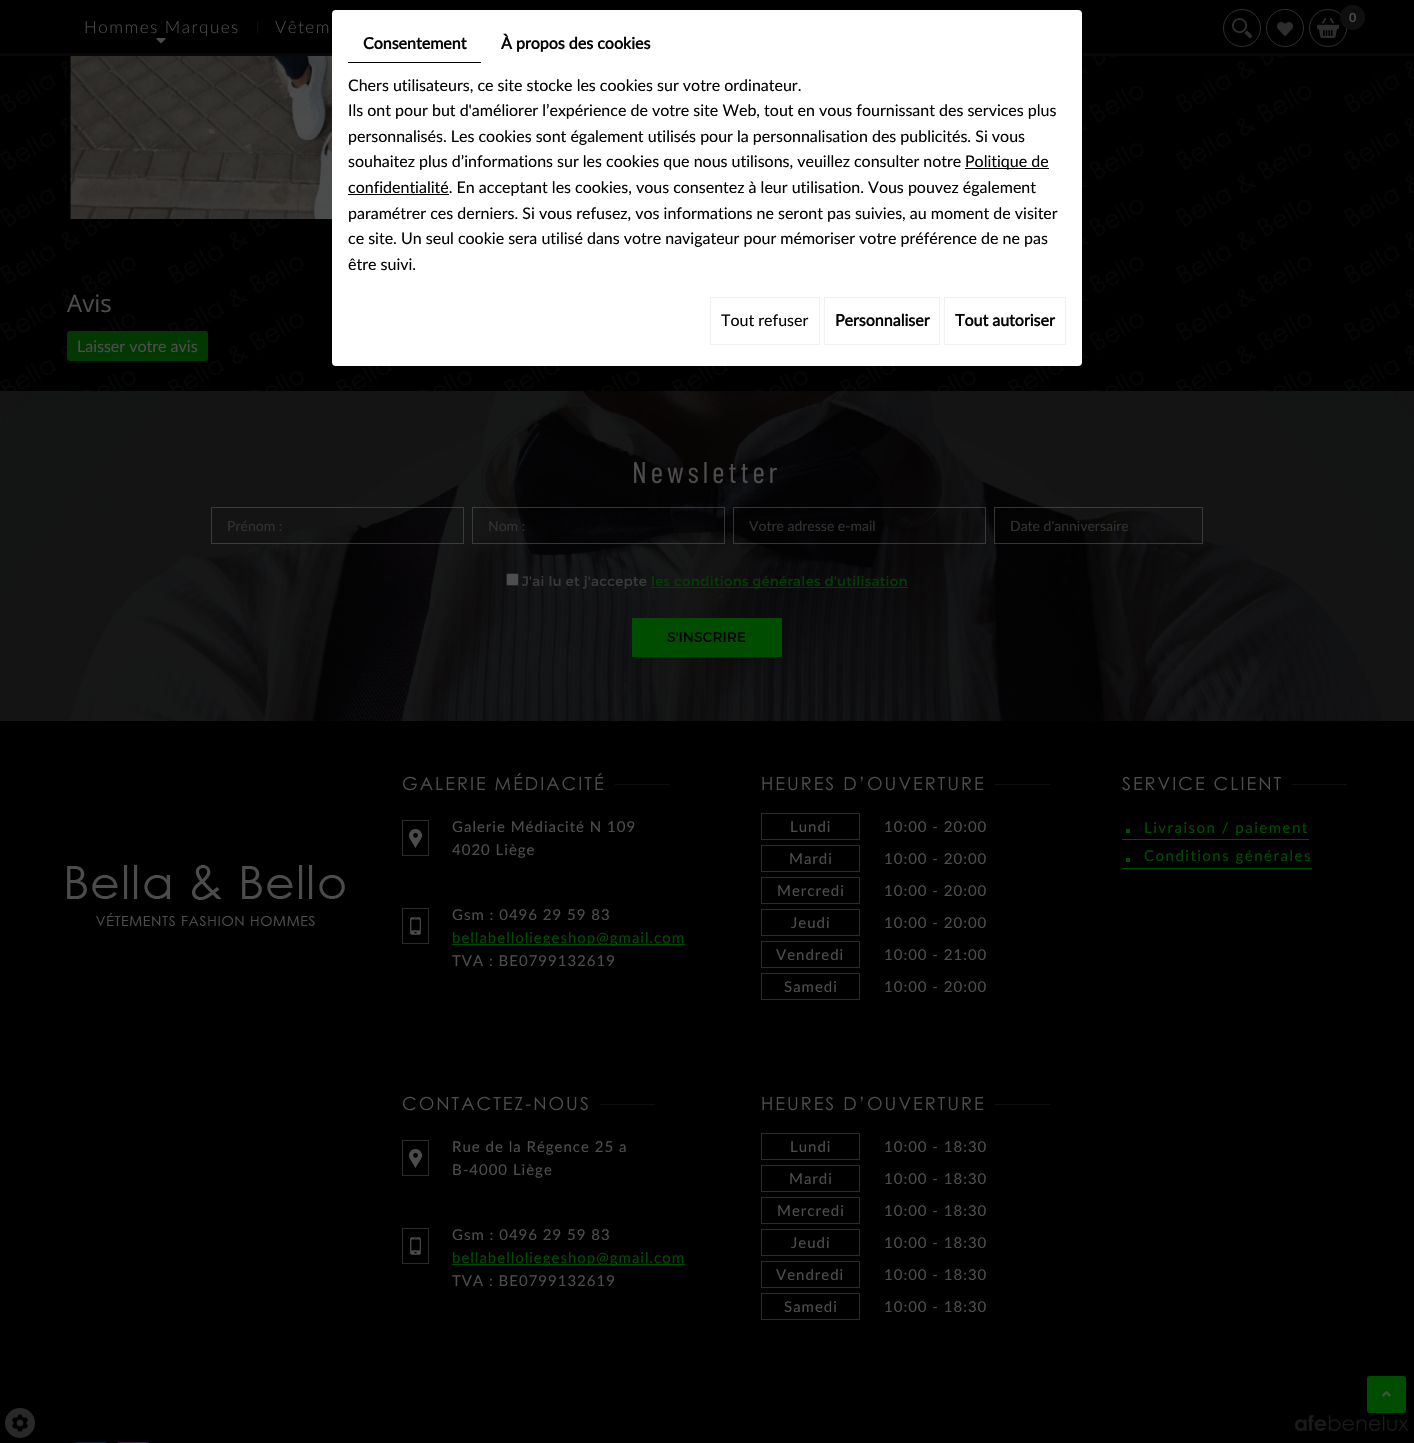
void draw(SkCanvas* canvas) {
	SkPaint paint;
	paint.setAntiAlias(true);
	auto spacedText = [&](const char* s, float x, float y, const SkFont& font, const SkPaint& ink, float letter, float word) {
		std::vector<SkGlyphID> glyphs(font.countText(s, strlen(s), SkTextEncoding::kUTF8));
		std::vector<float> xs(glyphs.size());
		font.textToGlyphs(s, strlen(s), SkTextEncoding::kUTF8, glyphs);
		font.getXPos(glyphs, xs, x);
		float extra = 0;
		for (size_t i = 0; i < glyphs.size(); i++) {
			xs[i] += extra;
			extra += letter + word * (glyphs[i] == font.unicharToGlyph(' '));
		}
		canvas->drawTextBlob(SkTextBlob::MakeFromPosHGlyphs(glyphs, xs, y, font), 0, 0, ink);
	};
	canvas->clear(0xffffffff);
	canvas->drawImageRect(SkImages::DeferredFromEncodedData(SkData::MakeFromFileName("img1.png")), SkRect::MakeXYWH(0, 56, 1414, 335), SkSamplingOptions());
	paint.setColor(0xff000000);
	canvas->drawRect(SkRect::MakeXYWH(0, 0, 1414, 53), paint);
	paint.setColor(0xff080808);
	canvas->drawRect(SkRect::MakeXYWH(0, 53, 1414, 3), paint);
	paint.setStroke(true);
	paint.setStrokeWidth(1);
	paint.setColor(0xff2d2d2d);
	canvas->drawCircle(1242, 28, 18.5, paint);
	canvas->drawImageRect(SkImages::DeferredFromEncodedData(SkData::MakeFromFileName("img2.png")), SkRect::MakeXYWH(1232, 18, 20, 20), SkSamplingOptions());
	canvas->drawCircle(1285, 28, 18.5, paint);
	canvas->drawImageRect(SkImages::DeferredFromEncodedData(SkData::MakeFromFileName("img3.png")), SkRect::MakeXYWH(1277, 22, 16, 14), SkSamplingOptions());
	canvas->drawImageRect(SkImages::DeferredFromEncodedData(SkData::MakeFromFileName("img4.png")), SkRect::MakeXYWH(1317, 18, 22, 20), SkSamplingOptions());
	canvas->drawCircle(1328, 28, 18.5, paint);
	paint.setStroke(false);
	paint.setColor(0xff0f0f0f);
	canvas->drawCircle(1352.5, 17.5, 12.5, paint);
	SkFont f1(fontMgr->matchFamilyStyle("Lato", SkFontStyle::Bold()), 12);
	f1.setSubpixel(true);
	paint.setColor(0xff4d4d4d);
	canvas->drawString("0", 1349, 22, f1, paint);
	paint.setColor(0xff0f0f0f);
	canvas->drawRect(SkRect::MakeXYWH(257, 21, 1, 12), paint);
	SkFont f2(fontMgr->matchFamilyStyle("Lato", SkFontStyle(300, SkFontStyle::kNormal_Width, SkFontStyle::kUpright_Slant)), 17);
	f2.setSubpixel(true);
	paint.setColor(0xff4d4d4d);
	spacedText("Hommes Marques", 84, 33, f2, paint, 1.5, 0);
	canvas->drawImageRect(SkImages::DeferredFromEncodedData(SkData::MakeFromFileName("img5.png")), SkRect::MakeXYWH(156, 38, 10, 6), SkSamplingOptions());
	spacedText("Vêtem", 275, 33, f2, paint, 1.5, 0);
	canvas->drawImageRect(SkImages::DeferredFromEncodedData(SkData::MakeFromFileName("img6.png")), SkRect::MakeXYWH(67, 56, 265, 163), SkSamplingOptions());
	SkFont f3(fontMgr->matchFamilyStyle("Open Sans", SkFontStyle::Normal()), 24);
	f3.setSubpixel(true);
	canvas->drawString("Avis", 67, 312, f3, paint);
	paint.setColor(0xff033803);
	canvas->drawRoundRect(SkRect::MakeXYWH(67, 331, 141, 30), 3, 3, paint);
	SkFont f4(fontMgr->matchFamilyStyle("Lato", SkFontStyle::Normal()), 16);
	f4.setSubpixel(true);
	paint.setColor(0xff4d4d4d);
	canvas->drawString("Laisser votre avis", 77, 352, f4, paint);
	paint.setColor(0xffffffff);
	canvas->drawRoundRect(SkRect::MakeXYWH(332, 10, 750, 356), 4, 4, paint);
	paint.setColor(0xff000000);
	canvas->drawRect(SkRect::MakeXYWH(348, 62, 133, 1), paint);
	SkFont f5(fontMgr->matchFamilyStyle("Lato", SkFontStyle::Bold()), 16);
	f5.setSubpixel(true);
	paint.setColor(0xff040404);
	canvas->drawString("Consentement", 363, 49, f5, paint);
	canvas->drawString("À propos des cookies", 501, 49, f5, paint);
	canvas->drawString("Chers utilisateurs, ce site stocke les cookies sur votre ordinateur.", 348, 91, f4, paint);
	canvas->drawString("Ils ont pour but d'améliorer l’expérience de votre site Web, tout en vous fournissant des services plus", 348, 116, f4, paint);
	canvas->drawString("personnalisés. Les cookies sont également utilisés pour la personnalisation des publicités. Si vous", 348, 142, f4, paint);
	canvas->drawString("souhaitez plus d’informations sur les cookies que nous utilisons, veuillez consulter notre", 348, 167, f4, paint);
	paint.setColor(0xff000000);
	canvas->drawRect(SkRect::MakeXYWH(965, 168, 84, 1), paint);
	paint.setColor(0xff040404);
	canvas->drawString("Politique de", 965, 167, f4, paint);
	paint.setColor(0xff000000);
	canvas->drawRect(SkRect::MakeXYWH(348, 194, 101, 1), paint);
	paint.setColor(0xff040404);
	canvas->drawString("confidentialité. En acceptant les cookies, vous consentez à leur utilisation. Vous pouvez également", 348, 193, f4, paint);
	canvas->drawString("paramétrer ces derniers. Si vous refusez, vos informations ne seront pas suivies, au moment de visiter", 348, 219, f4, paint);
	canvas->drawString("ce site. Un seul cookie sera utilisé dans votre navigateur pour mémoriser votre préférence de ne pas", 348, 244, f4, paint);
	canvas->drawString("être suivi.", 348, 270, f4, paint);
	paint.setStroke(true);
	paint.setColor(0xfff0f0f0);
	canvas->drawRect(SkRect::MakeXYWH(710.5, 297.5, 109, 47), paint);
	paint.setStroke(false);
	paint.setColor(0xff040404);
	canvas->drawString("Tout refuser", 721, 326, f4, paint);
	paint.setStroke(true);
	paint.setColor(0xfff0f0f0);
	canvas->drawRect(SkRect::MakeXYWH(824.5, 297.5, 115, 47), paint);
	paint.setStroke(false);
	paint.setColor(0xff040404);
	canvas->drawString("Personnaliser", 835, 326, f5, paint);
	paint.setStroke(true);
	paint.setColor(0xfff0f0f0);
	canvas->drawRect(SkRect::MakeXYWH(944.5, 297.5, 121, 47), paint);
	paint.setStroke(false);
	paint.setColor(0xff040404);
	canvas->drawString("Tout autoriser", 955, 326, f5, paint);
	canvas->drawImageRect(SkImages::DeferredFromEncodedData(SkData::MakeFromFileName("img7.png")), SkRect::MakeXYWH(0, 391, 1414, 330), SkSamplingOptions());
	SkFont f6(fontMgr->matchFamilyStyle("Barlow Condensed", SkFontStyle::Normal()), 30);
	f6.setSubpixel(true);
	paint.setColor(0xff4d4d4d);
	spacedText("Newsletter", 632, 483, f6, paint, 4, 0);
	paint.setStroke(true);
	paint.setColor(0xad4d4d4d);
	canvas->drawRect(SkRect::MakeXYWH(211.5, 507.5, 252, 36), paint);
	SkFont f7(fontMgr->matchFamilyStyle("Lato", SkFontStyle::Normal()), 14);
	f7.setSubpixel(true);
	paint.setStroke(false);
	paint.setColor(0xff313131);
	canvas->drawString("Prénom :", 227, 531, f7, paint);
	paint.setStroke(true);
	paint.setColor(0xad4d4d4d);
	canvas->drawRect(SkRect::MakeXYWH(472.5, 507.5, 252, 36), paint);
	paint.setStroke(false);
	paint.setColor(0xff313131);
	canvas->drawString("Nom :", 488, 531, f7, paint);
	paint.setStroke(true);
	paint.setColor(0xad4d4d4d);
	canvas->drawRect(SkRect::MakeXYWH(733.5, 507.5, 252, 36), paint);
	paint.setStroke(false);
	paint.setColor(0xff313131);
	canvas->drawString("Votre adresse e-mail", 749, 531, f7, paint);
	paint.setStroke(true);
	paint.setColor(0xad4d4d4d);
	canvas->drawRect(SkRect::MakeXYWH(994.5, 507.5, 208, 36), paint);
	paint.setStroke(false);
	paint.setColor(0xff313131);
	canvas->drawString("Date d'anniversaire", 1010, 531, f7, paint);
	paint.setColor(0xff4d4d4d);
	canvas->drawRoundRect(SkRect::MakeXYWH(506.5, 573.5, 12, 12), 1.5, 1.5, paint);
	paint.setStroke(true);
	paint.setColor(0xff232323);
	canvas->drawRoundRect(SkRect::MakeXYWH(506.5, 573.5, 12, 12), 1.5, 1.5, paint);
	SkFont f8(fontMgr->matchFamilyStyle("Montserrat", SkFontStyle::Normal()), 13.6);
	f8.setSubpixel(true);
	paint.setStroke(false);
	paint.setColor(0xff3a3a3a);
	spacedText("J'ai lu et j'accepte", 522, 586, f8, paint, 0.3, 0);
	paint.setColor(0xff023d02);
	canvas->drawRect(SkRect::MakeXYWH(651, 587, 257, 1), paint);
	spacedText("les conditions générales d'utilisation", 651, 586, f8, paint, 0.3, 0);
	paint.setColor(0xff004d00);
	canvas->drawRect(SkRect::MakeXYWH(632, 618, 150, 39), paint);
	SkFont f9(fontMgr->matchFamilyStyle("Montserrat", SkFontStyle::Normal()), 14);
	f9.setSubpixel(true);
	paint.setColor(0xff040404);
	canvas->drawString("S'INSCRIRE", 667, 642, f9, paint);
	paint.setColor(0xff000000);
	canvas->drawRect(SkRect::MakeXYWH(0, 721, 1414, 722), paint);
	SkFont f10(fontMgr->matchFamilyStyle("Century Gothic", SkFontStyle::Normal()), 18);
	f10.setSubpixel(true);
	paint.setColor(0xff4d4d4d);
	spacedText("GALERIE MÉDIACITÉ", 402, 790, f10, paint, 2, 0);
	paint.setColor(0xff0f0f0f);
	canvas->drawRect(SkRect::MakeXYWH(615, 784, 55, 1), paint);
	canvas->drawImageRect(SkImages::DeferredFromEncodedData(SkData::MakeFromFileName("img8.png")), SkRect::MakeXYWH(402, 820, 27, 36), SkSamplingOptions());
	SkFont f11(fontMgr->matchFamilyStyle("Lato", SkFontStyle::Normal()), 15);
	f11.setSubpixel(true);
	paint.setColor(0xff4d4d4d);
	spacedText("Galerie Médiacité N 109", 452, 832, f11, paint, 1, 0);
	spacedText("4020 Liège", 452, 855, f11, paint, 1, 0);
	canvas->drawImageRect(SkImages::DeferredFromEncodedData(SkData::MakeFromFileName("img9.png")), SkRect::MakeXYWH(402, 908, 27, 36), SkSamplingOptions());
	spacedText("Gsm : 0496 29 59 83", 452, 920, f11, paint, 1, 0);
	paint.setColor(0xff004d00);
	canvas->drawRect(SkRect::MakeXYWH(452, 944, 233, 1), paint);
	spacedText("bellabelloliegeshop@gmail.com", 452, 943, f11, paint, 1, 0);
	paint.setColor(0xff4d4d4d);
	spacedText("TVA : BE0799132619", 452, 966, f11, paint, 1, 0);
	spacedText("HEURES D’OUVERTURE", 761, 790, f10, paint, 2, 0);
	paint.setColor(0xff0f0f0f);
	canvas->drawRect(SkRect::MakeXYWH(995, 784, 55, 1), paint);
	paint.setStroke(true);
	paint.setColor(0xff2c2c2c);
	canvas->drawRect(SkRect::MakeXYWH(761.5, 813.5, 98, 26), paint);
	paint.setStroke(false);
	paint.setColor(0xff4d4d4d);
	spacedText("Lundi", 790, 832, f11, paint, 1, 0);
	spacedText("10:00 - 20:00", 884, 832, f11, paint, 1, 0);
	paint.setStroke(true);
	paint.setColor(0xff2c2c2c);
	canvas->drawRect(SkRect::MakeXYWH(761.5, 845.5, 98, 26), paint);
	paint.setStroke(false);
	paint.setColor(0xff4d4d4d);
	spacedText("Mardi", 789, 864, f11, paint, 1, 0);
	spacedText("10:00 - 20:00", 884, 864, f11, paint, 1, 0);
	paint.setStroke(true);
	paint.setColor(0xff2c2c2c);
	canvas->drawRect(SkRect::MakeXYWH(761.5, 877.5, 98, 26), paint);
	paint.setStroke(false);
	paint.setColor(0xff4d4d4d);
	spacedText("Mercredi", 777, 896, f11, paint, 1, 0);
	spacedText("10:00 - 20:00", 884, 896, f11, paint, 1, 0);
	paint.setStroke(true);
	paint.setColor(0xff2c2c2c);
	canvas->drawRect(SkRect::MakeXYWH(761.5, 909.5, 98, 26), paint);
	paint.setStroke(false);
	paint.setColor(0xff4d4d4d);
	spacedText("Jeudi", 791, 928, f11, paint, 1, 0);
	spacedText("10:00 - 20:00", 884, 928, f11, paint, 1, 0);
	paint.setStroke(true);
	paint.setColor(0xff2c2c2c);
	canvas->drawRect(SkRect::MakeXYWH(761.5, 941.5, 98, 26), paint);
	paint.setStroke(false);
	paint.setColor(0xff4d4d4d);
	spacedText("Vendredi", 776, 960, f11, paint, 1, 0);
	spacedText("10:00 - 21:00", 884, 960, f11, paint, 1, 0);
	paint.setStroke(true);
	paint.setColor(0xff2c2c2c);
	canvas->drawRect(SkRect::MakeXYWH(761.5, 973.5, 98, 26), paint);
	paint.setStroke(false);
	paint.setColor(0xff4d4d4d);
	spacedText("Samedi", 784, 992, f11, paint, 1, 0);
	spacedText("10:00 - 20:00", 884, 992, f11, paint, 1, 0);
	spacedText("SERVICE CLIENT", 1122, 790, f10, paint, 2, 0);
	paint.setColor(0xff0f0f0f);
	canvas->drawRect(SkRect::MakeXYWH(1292, 784, 55, 1), paint);
	paint.setColor(0xff004d00);
	canvas->drawRect(SkRect::MakeXYWH(1126, 829, 4, 4), paint);
	spacedText("Livraison / paiement", 1144, 833, f11, paint, 1.5, 0);
	canvas->drawRect(SkRect::MakeXYWH(1122, 839, 187, 1), paint);
	canvas->drawRect(SkRect::MakeXYWH(1126, 858, 4, 4), paint);
	spacedText("Conditions générales", 1144, 861, f11, paint, 1.5, 0);
	canvas->drawRect(SkRect::MakeXYWH(1122, 868, 190, 1), paint);
	canvas->drawImageRect(SkImages::DeferredFromEncodedData(SkData::MakeFromFileName("img10.png")), SkRect::MakeXYWH(67, 865, 278, 61), SkSamplingOptions());
	paint.setColor(0xff4d4d4d);
	spacedText("CONTACTEZ-NOUS", 402, 1110, f10, paint, 2, 0);
	paint.setColor(0xff0f0f0f);
	canvas->drawRect(SkRect::MakeXYWH(600, 1104, 55, 1), paint);
	canvas->drawImageRect(SkImages::DeferredFromEncodedData(SkData::MakeFromFileName("img8.png")), SkRect::MakeXYWH(402, 1140, 27, 36), SkSamplingOptions());
	paint.setColor(0xff4d4d4d);
	spacedText("Rue de la Régence 25 a", 452, 1152, f11, paint, 1, 0);
	spacedText("B-4000 Liège", 452, 1175, f11, paint, 1, 0);
	canvas->drawImageRect(SkImages::DeferredFromEncodedData(SkData::MakeFromFileName("img9.png")), SkRect::MakeXYWH(402, 1228, 27, 36), SkSamplingOptions());
	spacedText("Gsm : 0496 29 59 83", 452, 1240, f11, paint, 1, 0);
	paint.setColor(0xff004d00);
	canvas->drawRect(SkRect::MakeXYWH(452, 1264, 233, 1), paint);
	spacedText("bellabelloliegeshop@gmail.com", 452, 1263, f11, paint, 1, 0);
	paint.setColor(0xff4d4d4d);
	spacedText("TVA : BE0799132619", 452, 1286, f11, paint, 1, 0);
	spacedText("HEURES D’OUVERTURE", 761, 1110, f10, paint, 2, 0);
	paint.setColor(0xff0f0f0f);
	canvas->drawRect(SkRect::MakeXYWH(995, 1104, 55, 1), paint);
	paint.setStroke(true);
	paint.setColor(0xff2c2c2c);
	canvas->drawRect(SkRect::MakeXYWH(761.5, 1133.5, 98, 26), paint);
	paint.setStroke(false);
	paint.setColor(0xff4d4d4d);
	spacedText("Lundi", 790, 1152, f11, paint, 1, 0);
	spacedText("10:00 - 18:30", 884, 1152, f11, paint, 1, 0);
	paint.setStroke(true);
	paint.setColor(0xff2c2c2c);
	canvas->drawRect(SkRect::MakeXYWH(761.5, 1165.5, 98, 26), paint);
	paint.setStroke(false);
	paint.setColor(0xff4d4d4d);
	spacedText("Mardi", 789, 1184, f11, paint, 1, 0);
	spacedText("10:00 - 18:30", 884, 1184, f11, paint, 1, 0);
	paint.setStroke(true);
	paint.setColor(0xff2c2c2c);
	canvas->drawRect(SkRect::MakeXYWH(761.5, 1197.5, 98, 26), paint);
	paint.setStroke(false);
	paint.setColor(0xff4d4d4d);
	spacedText("Mercredi", 777, 1216, f11, paint, 1, 0);
	spacedText("10:00 - 18:30", 884, 1216, f11, paint, 1, 0);
	paint.setStroke(true);
	paint.setColor(0xff2c2c2c);
	canvas->drawRect(SkRect::MakeXYWH(761.5, 1229.5, 98, 26), paint);
	paint.setStroke(false);
	paint.setColor(0xff4d4d4d);
	spacedText("Jeudi", 791, 1248, f11, paint, 1, 0);
	spacedText("10:00 - 18:30", 884, 1248, f11, paint, 1, 0);
	paint.setStroke(true);
	paint.setColor(0xff2c2c2c);
	canvas->drawRect(SkRect::MakeXYWH(761.5, 1261.5, 98, 26), paint);
	paint.setStroke(false);
	paint.setColor(0xff4d4d4d);
	spacedText("Vendredi", 776, 1280, f11, paint, 1, 0);
	spacedText("10:00 - 18:30", 884, 1280, f11, paint, 1, 0);
	paint.setStroke(true);
	paint.setColor(0xff2c2c2c);
	canvas->drawRect(SkRect::MakeXYWH(761.5, 1293.5, 98, 26), paint);
	paint.setStroke(false);
	paint.setColor(0xff4d4d4d);
	spacedText("Samedi", 784, 1312, f11, paint, 1, 0);
	spacedText("10:00 - 18:30", 884, 1312, f11, paint, 1, 0);
	canvas->drawImageRect(SkImages::DeferredFromEncodedData(SkData::MakeFromFileName("img11.png")), SkRect::MakeXYWH(75, 1442, 32, 1), SkSamplingOptions());
	canvas->drawImageRect(SkImages::DeferredFromEncodedData(SkData::MakeFromFileName("img12.png")), SkRect::MakeXYWH(117, 1442, 32, 1), SkSamplingOptions());
	paint.setColor(0xff004d00);
	canvas->drawRoundRect(SkRect::MakeXYWH(1367, 1376, 39, 37), 3, 3, paint);
	canvas->drawImageRect(SkImages::DeferredFromEncodedData(SkData::MakeFromFileName("img13.png")), SkRect::MakeXYWH(1382, 1391, 9, 6), SkSamplingOptions());
	paint.setColor(0xff292929);
	canvas->drawCircle(20, 1423, 15, paint);
	canvas->drawImageRect(SkImages::DeferredFromEncodedData(SkData::MakeFromFileName("img14.png")), SkRect::MakeXYWH(11, 1414, 18, 18), SkSamplingOptions());
	canvas->drawImageRect(SkImages::DeferredFromEncodedData(SkData::MakeFromFileName("img15.png")), SkRect::MakeXYWH(1295, 1415, 114, 16), SkSamplingOptions());
}
